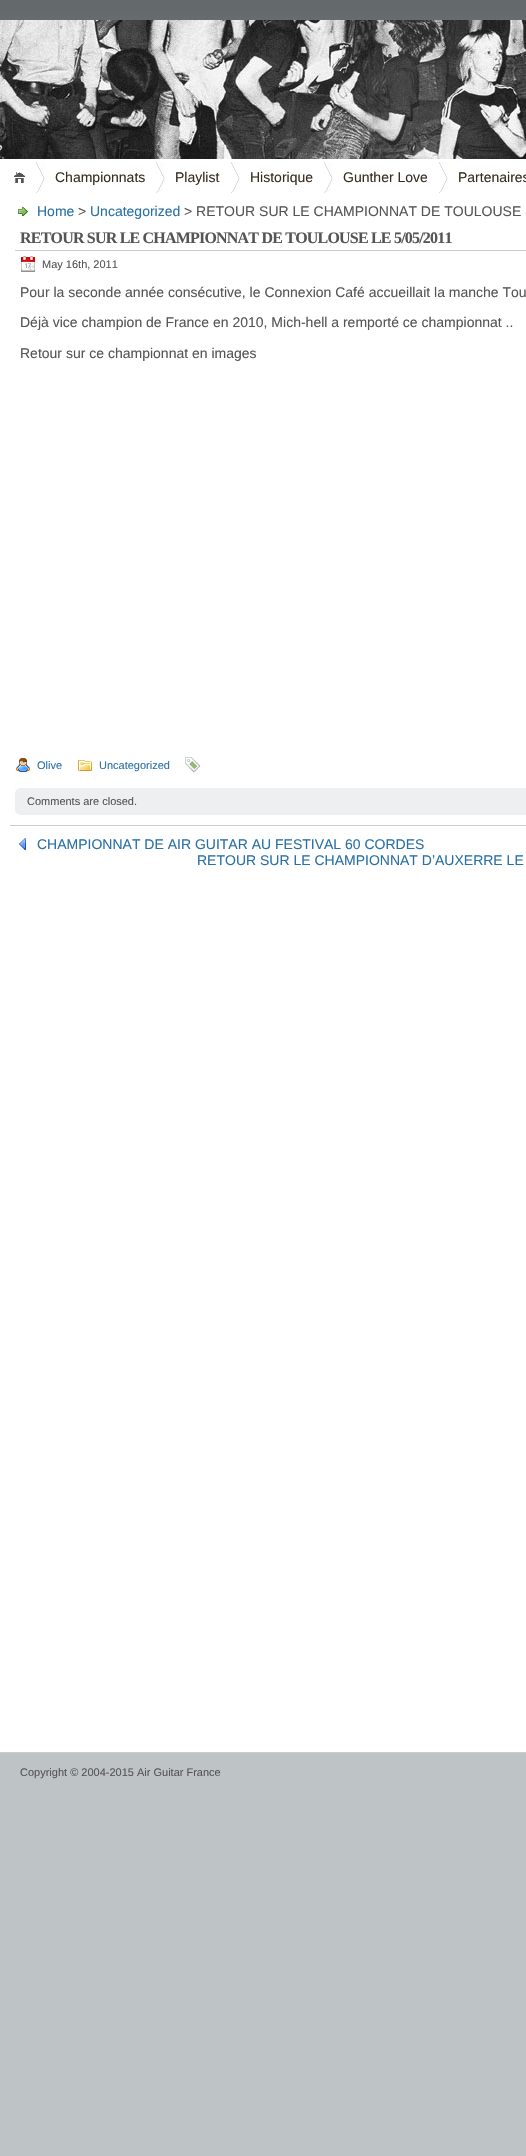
void draw(SkCanvas* canvas) {
	SkPaint paint;
	paint.setAntiAlias(true);
	auto spacedText = [&](const char* s, float x, float y, const SkFont& font, const SkPaint& ink, float letter, float word) {
		std::vector<SkGlyphID> glyphs(font.countText(s, strlen(s), SkTextEncoding::kUTF8));
		std::vector<float> xs(glyphs.size());
		font.textToGlyphs(s, strlen(s), SkTextEncoding::kUTF8, glyphs);
		font.getXPos(glyphs, xs, x);
		float extra = 0;
		for (size_t i = 0; i < glyphs.size(); i++) {
			xs[i] += extra;
			extra += letter + word * (glyphs[i] == font.unicharToGlyph(' '));
		}
		canvas->drawTextBlob(SkTextBlob::MakeFromPosHGlyphs(glyphs, xs, y, font), 0, 0, ink);
	};
	canvas->clear(0xffbec3c6);
	canvas->drawImageRect(SkImages::DeferredFromEncodedData(SkData::MakeFromFileName("img1.png")), SkRect::MakeXYWH(0, 0, 526, 20), SkSamplingOptions());
	canvas->drawImageRect(SkImages::DeferredFromEncodedData(SkData::MakeFromFileName("img2.png")), SkRect::MakeXYWH(0, 20, 526, 139), SkSamplingOptions());
	paint.setColor(0xffffffff);
	canvas->drawRect(SkRect::MakeXYWH(0, 159, 526, 1593), paint);
	canvas->drawImageRect(SkImages::DeferredFromEncodedData(SkData::MakeFromFileName("img3.png")), SkRect::MakeXYWH(14, 172, 11, 11), SkSamplingOptions());
	canvas->drawImageRect(SkImages::DeferredFromEncodedData(SkData::MakeFromFileName("img4.png")), SkRect::MakeXYWH(36, 162, 9, 31), SkSamplingOptions());
	SkFont f1(fontMgr->matchFamilyStyle("Liberation Sans", SkFontStyle::Normal()), 14);
	f1.setSubpixel(true);
	paint.setColor(0xff382e1f);
	canvas->drawString("Championnats", 55, 182, f1, paint);
	canvas->drawImageRect(SkImages::DeferredFromEncodedData(SkData::MakeFromFileName("img5.png")), SkRect::MakeXYWH(156, 162, 9, 31), SkSamplingOptions());
	canvas->drawString("Playlist", 175, 182, f1, paint);
	canvas->drawImageRect(SkImages::DeferredFromEncodedData(SkData::MakeFromFileName("img4.png")), SkRect::MakeXYWH(231, 162, 9, 31), SkSamplingOptions());
	canvas->drawString("Historique", 250, 182, f1, paint);
	canvas->drawImageRect(SkImages::DeferredFromEncodedData(SkData::MakeFromFileName("img6.png")), SkRect::MakeXYWH(324, 162, 9, 31), SkSamplingOptions());
	canvas->drawString("Gunther Love", 343, 182, f1, paint);
	canvas->drawImageRect(SkImages::DeferredFromEncodedData(SkData::MakeFromFileName("img4.png")), SkRect::MakeXYWH(439, 162, 9, 31), SkSamplingOptions());
	canvas->drawString("Partenaires", 458, 182, f1, paint);
	canvas->drawImageRect(SkImages::DeferredFromEncodedData(SkData::MakeFromFileName("img7.png")), SkRect::MakeXYWH(18, 207, 10, 10), SkSamplingOptions());
	paint.setColor(0xff2970a6);
	canvas->drawString("Home", 37, 216, f1, paint);
	paint.setColor(0xff555555);
	canvas->drawString(">", 78, 216, f1, paint);
	paint.setColor(0xff2970a6);
	canvas->drawString("Uncategorized", 90, 216, f1, paint);
	paint.setColor(0xff555555);
	canvas->drawString("> RETOUR SUR LE CHAMPIONNAT DE TOULOUSE", 184, 216, f1, paint);
	paint.setColor(0xffcccccc);
	canvas->drawRect(SkRect::MakeXYWH(15, 250, 511, 1), paint);
	SkFont f2(fontMgr->matchFamilyStyle("Liberation Serif", SkFontStyle::Bold()), 16);
	f2.setSubpixel(true);
	paint.setColor(0xff555555);
	spacedText("RETOUR SUR LE CHAMPIONNAT DE TOULOUSE LE 5/05/2011", 20, 243, f2, paint, -0.8, 0);
	canvas->drawImageRect(SkImages::DeferredFromEncodedData(SkData::MakeFromFileName("img8.png")), SkRect::MakeXYWH(21, 256, 14, 16), SkSamplingOptions());
	SkFont f3(fontMgr->matchFamilyStyle("Liberation Sans", SkFontStyle::Normal()), 11);
	f3.setSubpixel(true);
	canvas->drawString("May 16th, 2011", 42, 268, f3, paint);
	canvas->drawString("Pour la seconde année consécutive, le Connexion Café accueillait la manche Tou", 20, 297, f1, paint);
	canvas->drawString("Déjà vice champion de France en 2010, Mich-hell a remporté ce championnat ..", 20, 327, f1, paint);
	canvas->drawString("Retour sur ce championnat en images", 20, 358, f1, paint);
	canvas->drawImageRect(SkImages::DeferredFromEncodedData(SkData::MakeFromFileName("img9.png")), SkRect::MakeXYWH(16, 758, 14, 14), SkSamplingOptions());
	paint.setColor(0xff2970a6);
	canvas->drawString("Olive", 37, 769, f3, paint);
	canvas->drawImageRect(SkImages::DeferredFromEncodedData(SkData::MakeFromFileName("img10.png")), SkRect::MakeXYWH(78, 760, 14, 11), SkSamplingOptions());
	canvas->drawString("Uncategorized", 99, 769, f3, paint);
	canvas->drawImageRect(SkImages::DeferredFromEncodedData(SkData::MakeFromFileName("img11.png")), SkRect::MakeXYWH(185, 757, 16, 16), SkSamplingOptions());
	paint.setColor(0xffedeff0);
	canvas->drawRect(SkRect::MakeXYWH(15, 788, 511, 27), paint);
	canvas->drawImageRect(SkImages::DeferredFromEncodedData(SkData::MakeFromFileName("img12.png")), SkRect::MakeXYWH(15, 788, 4, 27), SkSamplingOptions());
	paint.setColor(0xff555555);
	canvas->drawString("Comments are closed.", 27, 805, f3, paint);
	paint.setColor(0xffcccccc);
	canvas->drawRect(SkRect::MakeXYWH(10, 825, 516, 1), paint);
	canvas->drawImageRect(SkImages::DeferredFromEncodedData(SkData::MakeFromFileName("img13.png")), SkRect::MakeXYWH(19, 838, 7, 12), SkSamplingOptions());
	paint.setColor(0xff2970a6);
	canvas->drawString("CHAMPIONNAT DE AIR GUITAR AU FESTIVAL 60 CORDES", 37, 849, f1, paint);
	canvas->drawString("RETOUR SUR LE CHAMPIONNAT D’AUXERRE LE", 197, 865, f1, paint);
	paint.setColor(0xffcccccc);
	canvas->drawRect(SkRect::MakeXYWH(0, 1752, 526, 1), paint);
	paint.setColor(0xff555555);
	canvas->drawString("Copyright © 2004-2015 Air Guitar France", 20, 1776, f3, paint);
}
